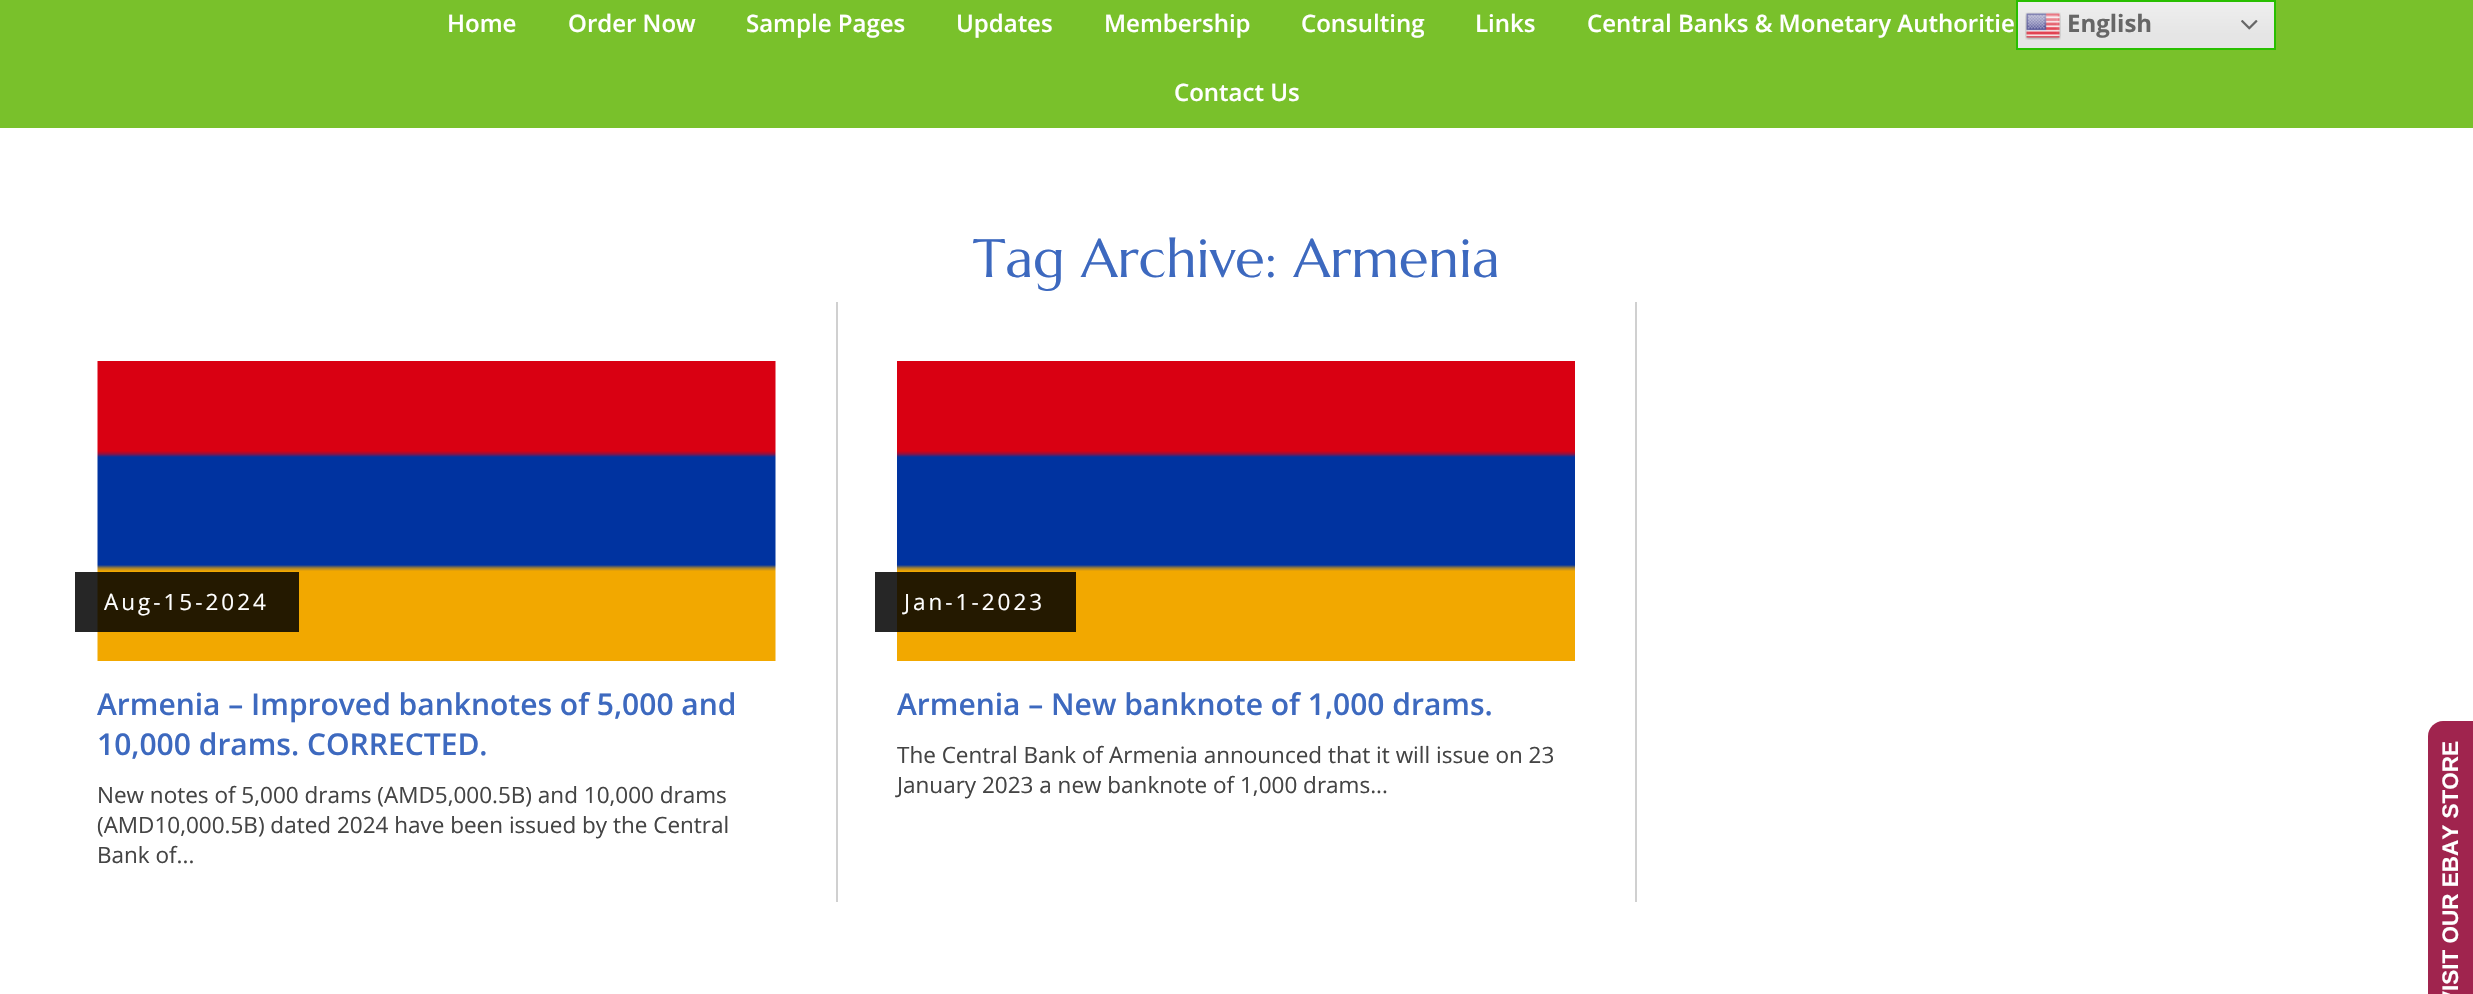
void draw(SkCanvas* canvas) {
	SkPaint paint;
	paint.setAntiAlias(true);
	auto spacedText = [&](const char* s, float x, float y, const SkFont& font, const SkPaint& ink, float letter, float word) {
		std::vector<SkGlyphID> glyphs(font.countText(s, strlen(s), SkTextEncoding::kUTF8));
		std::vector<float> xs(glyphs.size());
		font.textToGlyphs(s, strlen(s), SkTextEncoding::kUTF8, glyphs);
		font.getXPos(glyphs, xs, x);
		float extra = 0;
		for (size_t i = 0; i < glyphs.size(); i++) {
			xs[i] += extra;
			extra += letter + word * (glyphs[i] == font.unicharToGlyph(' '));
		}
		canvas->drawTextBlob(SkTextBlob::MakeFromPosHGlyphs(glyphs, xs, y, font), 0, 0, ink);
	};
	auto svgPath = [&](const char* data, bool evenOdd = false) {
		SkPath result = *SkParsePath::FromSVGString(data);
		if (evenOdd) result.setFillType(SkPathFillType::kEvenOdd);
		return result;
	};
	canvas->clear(0xffffffff);
	paint.setColor(0xff79c12b);
	canvas->drawRect(SkRect::MakeXYWH(0, 0, 2473, 128), paint);
	SkFont f1(fontMgr->matchFamilyStyle("Open Sans", SkFontStyle(600, SkFontStyle::kNormal_Width, SkFontStyle::kUpright_Slant)), 24);
	f1.setSubpixel(true);
	paint.setColor(0xffffffff);
	canvas->drawString("Home", 447, 32, f1, paint);
	canvas->drawString("Order Now", 568, 32, f1, paint);
	canvas->drawString("Sample Pages", 746, 32, f1, paint);
	canvas->drawString("Updates", 956, 32, f1, paint);
	canvas->drawString("Membership", 1104, 32, f1, paint);
	canvas->drawString("Consulting", 1301, 32, f1, paint);
	canvas->drawString("Links", 1475, 32, f1, paint);
	canvas->drawString("Central Banks & Monetary Authoritie", 1587, 32, f1, paint);
	canvas->drawString("Contact Us", 1174, 101, f1, paint);
	{
		const SkColor colors[] = {0xffefefef, 0xffe5e5e5};
		const float stops[] = {0, 0.7};
		const SkPoint ends[] = {{2146, 0}, {2146, 50}};
		paint.setShader(SkGradientShader::MakeLinear(ends, colors, stops, 2, SkTileMode::kClamp));
		paint.setAlpha(255);
	}
	canvas->drawRect(SkRect::MakeXYWH(2018, 2, 256, 46), paint);
	paint.setStroke(true);
	paint.setStrokeWidth(2);
	paint.setShader(nullptr);
	paint.setColor(0xff29bf00);
	canvas->drawRect(SkRect::MakeXYWH(2017, 1, 258, 48), paint);
	canvas->drawImageRect(SkImages::DeferredFromEncodedData(SkData::MakeFromFileName("img1.png")), SkRect::MakeXYWH(2025, 12, 36, 28), SkSamplingOptions());
	SkFont f2(fontMgr->matchFamilyStyle("Open Sans", SkFontStyle::Bold()), 24);
	f2.setSubpixel(true);
	paint.setStroke(false);
	paint.setColor(0xff666666);
	canvas->drawString("English", 2067, 32, f2, paint);
	canvas->drawImageRect(SkImages::DeferredFromEncodedData(SkData::MakeFromFileName("img2.png")), SkRect::MakeXYWH(2241, 20, 17, 10), SkSamplingOptions());
	SkFont f3(fontMgr->matchFamilyStyle("Marcellus", SkFontStyle::Normal()), 54);
	f3.setSubpixel(true);
	paint.setColor(0xff3d69bf);
	canvas->drawString("Tag Archive: Armenia", 973, 277, f3, paint);
	paint.setColor(0xffd0d0d0);
	canvas->drawRect(SkRect::MakeXYWH(836, 302, 2, 600), paint);
	canvas->drawImageRect(SkImages::DeferredFromEncodedData(SkData::MakeFromFileName("img3.png")), SkRect::MakeXYWH(97, 361, 679, 300), SkSamplingOptions());
	paint.setColor(0xd9000000);
	canvas->drawRect(SkRect::MakeXYWH(75, 572, 224, 60), paint);
	SkFont f4(fontMgr->matchFamilyStyle("Open Sans", SkFontStyle::Normal()), 22.5);
	f4.setSubpixel(true);
	paint.setColor(0xffffffff);
	spacedText("Aug-15-2024", 104, 610, f4, paint, 3, 0);
	SkFont f5(fontMgr->matchFamilyStyle("Open Sans", SkFontStyle(600, SkFontStyle::kNormal_Width, SkFontStyle::kUpright_Slant)), 30);
	f5.setSubpixel(true);
	paint.setColor(0xff3d69bf);
	canvas->drawString("Armenia – Improved banknotes of 5,000 and", 97, 715, f5, paint);
	canvas->drawString("10,000 drams. CORRECTED.", 97, 755, f5, paint);
	paint.setColor(0xff444444);
	canvas->drawString("New notes of 5,000 drams (AMD5,000.5B) and 10,000 drams", 97, 803, f4, paint);
	canvas->drawString("(AMD10,000.5B) dated 2024 have been issued by the Central", 97, 833, f4, paint);
	canvas->drawString("Bank of...", 97, 863, f4, paint);
	paint.setColor(0xffd0d0d0);
	canvas->drawRect(SkRect::MakeXYWH(1635, 302, 2, 600), paint);
	canvas->drawImageRect(SkImages::DeferredFromEncodedData(SkData::MakeFromFileName("img4.png")), SkRect::MakeXYWH(897, 361, 678, 300), SkSamplingOptions());
	paint.setColor(0xd9000000);
	canvas->drawRect(SkRect::MakeXYWH(875, 572, 201, 60), paint);
	paint.setColor(0xffffffff);
	spacedText("Jan-1-2023", 904, 610, f4, paint, 3, 0);
	paint.setColor(0xff3d69bf);
	canvas->drawString("Armenia – New banknote of 1,000 drams.", 897, 715, f5, paint);
	paint.setColor(0xff444444);
	canvas->drawString("The Central Bank of Armenia announced that it will issue on 23", 897, 763, f4, paint);
	canvas->drawString("January 2023 a new banknote of 1,000 drams...", 897, 793, f4, paint);
	paint.setColor(0xffa0244e);
	canvas->drawPath(svgPath("M2428 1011V736C2428 728 2435 721 2443 721H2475V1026H2443C2435 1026 2428 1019 2428 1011Z"), paint);
	SkFont f6(fontMgr->matchFamilyStyle("Liberation Sans", SkFontStyle::Bold()), 22.5);
	f6.setSubpixel(true);
	paint.setColor(0xffffffff);
	canvas->save();
	canvas->rotate(-90, 2458, 1006);
	canvas->drawString("VISIT OUR EBAY STORE", 2458, 1006, f6, paint);
	canvas->restore();
}
